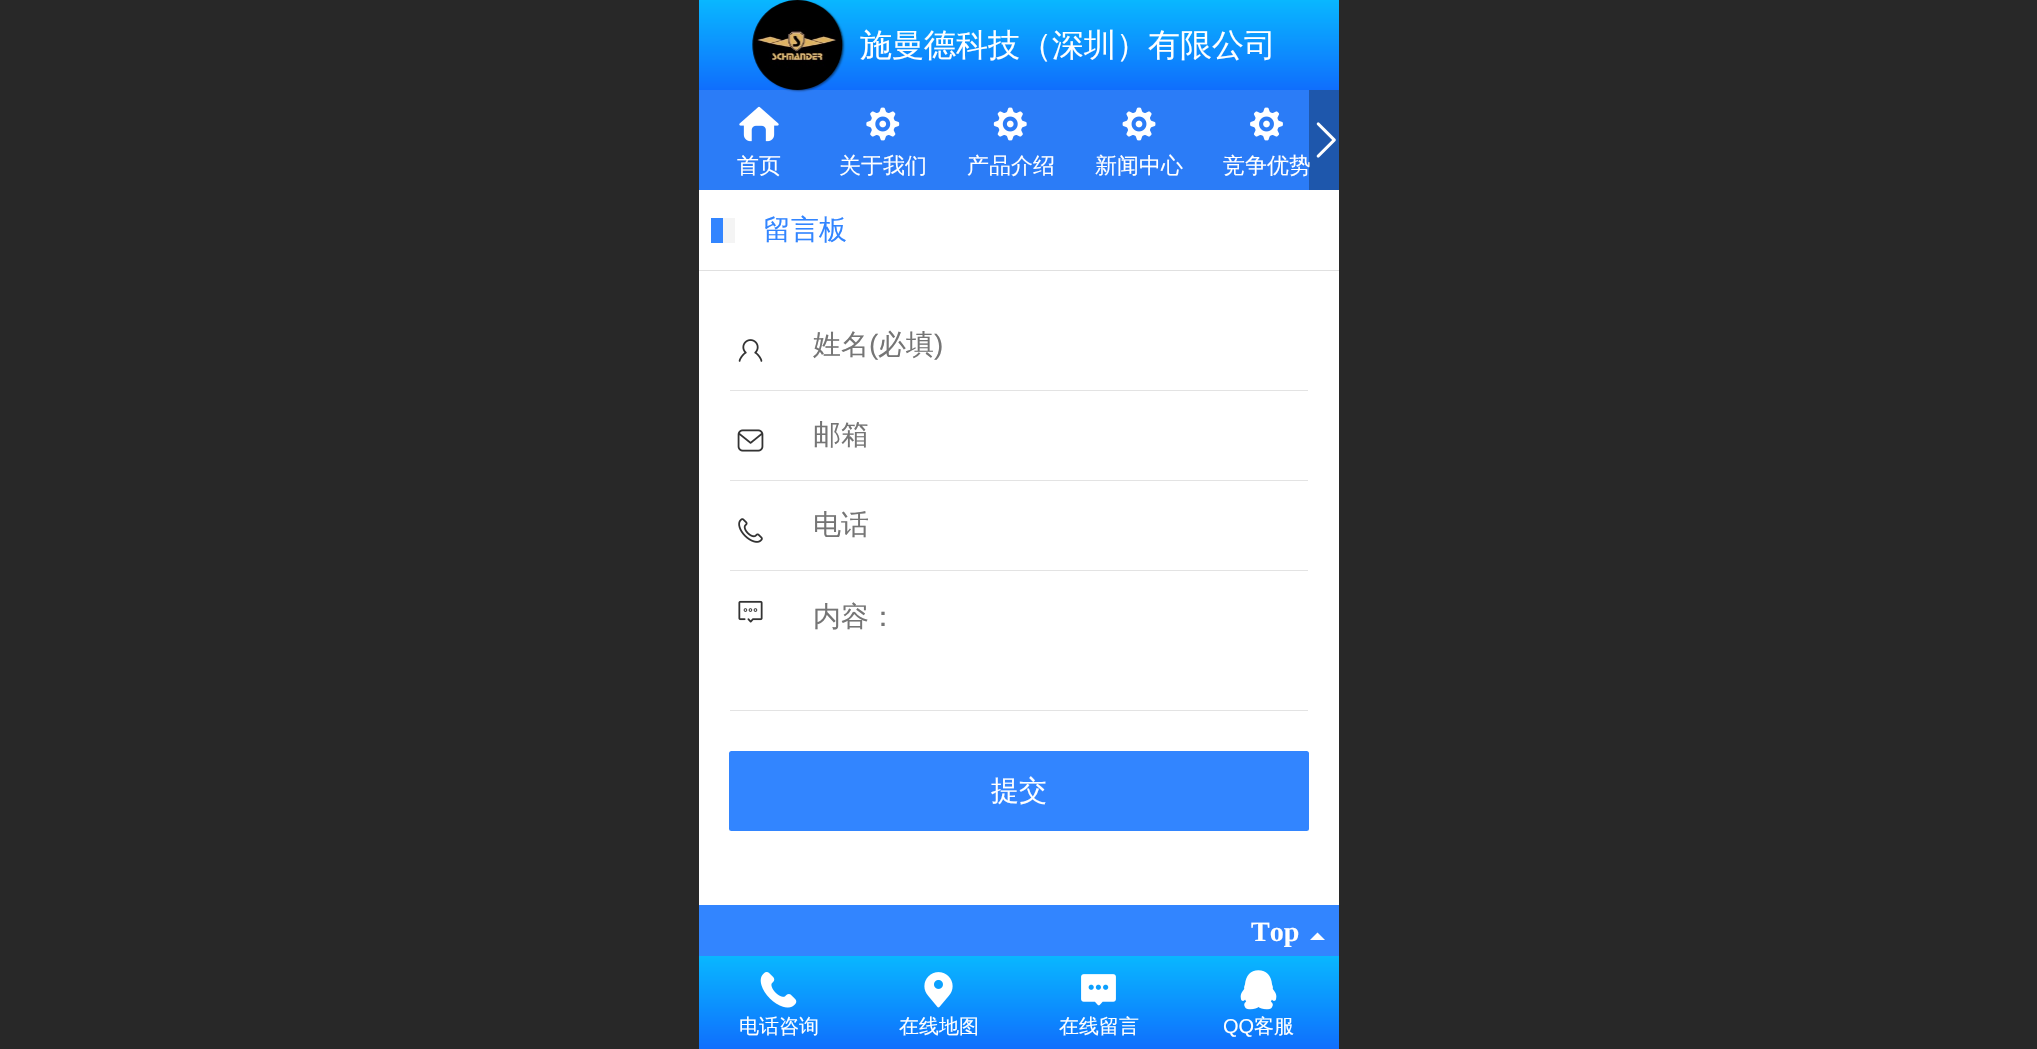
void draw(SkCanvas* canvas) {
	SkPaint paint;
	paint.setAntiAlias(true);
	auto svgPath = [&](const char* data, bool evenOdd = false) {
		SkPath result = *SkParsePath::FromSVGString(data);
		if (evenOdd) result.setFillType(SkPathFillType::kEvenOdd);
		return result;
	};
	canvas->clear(0xffffffff);
	paint.setColor(0xff282828);
	canvas->drawRect(SkRect::MakeXYWH(0, 0, 699, 1049), paint);
	{
		const SkColor colors[] = {0xff0f6efd, 0xff09b7ff};
		const float stops[] = {0, 1};
		const SkPoint ends[] = {{699, 90}, {699, 0}};
		paint.setShader(SkGradientShader::MakeLinear(ends, colors, stops, 2, SkTileMode::kClamp));
		paint.setAlpha(255);
	}
	canvas->drawRect(SkRect::MakeXYWH(699, 0, 640, 90), paint);
	paint.setShader(nullptr);
	paint.setColor(0xff2b7cf7);
	canvas->drawRect(SkRect::MakeXYWH(699, 90, 640, 100), paint);
	paint.setColor(0x66000000);
	paint.setMaskFilter(SkMaskFilter::MakeBlur(kNormal_SkBlurStyle, 1));
	canvas->drawRoundRect(SkRect::MakeXYWH(754, 1, 90, 90), 45, 45, paint);
	paint.setMaskFilter(nullptr);
	canvas->drawImageRect(SkImages::DeferredFromEncodedData(SkData::MakeFromFileName("img1.png")), SkRect::MakeXYWH(752, 0, 92, 90), SkSamplingOptions());
	SkFont f1(fontMgr->matchFamilyStyle("WenQuanYi Zen Hei", SkFontStyle(500, SkFontStyle::kNormal_Width, SkFontStyle::kUpright_Slant)), 32);
	f1.setSubpixel(true);
	paint.setColor(0xffffffff);
	canvas->drawString("施曼德科技（深圳）有限公司", 860, 56, f1, paint);
	canvas->drawImageRect(SkImages::DeferredFromEncodedData(SkData::MakeFromFileName("img2.png")), SkRect::MakeXYWH(739, 106, 40, 36), SkSamplingOptions());
	SkFont f2(fontMgr->matchFamilyStyle("WenQuanYi Zen Hei", SkFontStyle(500, SkFontStyle::kNormal_Width, SkFontStyle::kUpright_Slant)), 22);
	f2.setSubpixel(true);
	canvas->drawString("首页", 737, 173, f2, paint);
	canvas->drawImageRect(SkImages::DeferredFromEncodedData(SkData::MakeFromFileName("img3.png")), SkRect::MakeXYWH(866, 107, 34, 34), SkSamplingOptions());
	canvas->drawString("关于我们", 839, 173, f2, paint);
	canvas->drawImageRect(SkImages::DeferredFromEncodedData(SkData::MakeFromFileName("img4.png")), SkRect::MakeXYWH(993, 107, 34, 34), SkSamplingOptions());
	canvas->drawString("产品介绍", 967, 173, f2, paint);
	canvas->drawImageRect(SkImages::DeferredFromEncodedData(SkData::MakeFromFileName("img5.png")), SkRect::MakeXYWH(1122, 107, 34, 34), SkSamplingOptions());
	canvas->drawString("新闻中心", 1095, 173, f2, paint);
	canvas->drawImageRect(SkImages::DeferredFromEncodedData(SkData::MakeFromFileName("img6.png")), SkRect::MakeXYWH(1250, 107, 33, 34), SkSamplingOptions());
	canvas->drawString("竞争优势", 1223, 173, f2, paint);
	paint.setColor(0x4d000000);
	canvas->drawRect(SkRect::MakeXYWH(1309, 90, 30, 100), paint);
	canvas->drawImageRect(SkImages::DeferredFromEncodedData(SkData::MakeFromFileName("img7.png")), SkRect::MakeXYWH(1316, 122, 20, 36), SkSamplingOptions());
	paint.setColor(0xffe0e0e0);
	canvas->drawRect(SkRect::MakeXYWH(699, 270, 640, 1), paint);
	paint.setColor(0xff3285ff);
	canvas->drawRect(SkRect::MakeXYWH(711, 218, 12, 25), paint);
	paint.setColor(0xfff4f4f4);
	canvas->drawRect(SkRect::MakeXYWH(723, 218, 12, 25), paint);
	SkFont f3(fontMgr->matchFamilyStyle("WenQuanYi Zen Hei", SkFontStyle(500, SkFontStyle::kNormal_Width, SkFontStyle::kUpright_Slant)), 28);
	f3.setSubpixel(true);
	paint.setColor(0xff3285ff);
	canvas->drawString("留言板", 763, 239, f3, paint);
	canvas->drawImageRect(SkImages::DeferredFromEncodedData(SkData::MakeFromFileName("img8.png")), SkRect::MakeXYWH(738, 339, 25, 23), SkSamplingOptions());
	paint.setColor(0xffe3e3e3);
	canvas->drawRect(SkRect::MakeXYWH(730, 390, 578, 1), paint);
	paint.setColor(0xff757575);
	canvas->drawString("姓名", 813, 354, f3, paint);
	SkFont f4(fontMgr->matchFamilyStyle("Liberation Sans", SkFontStyle::Normal()), 28);
	f4.setSubpixel(true);
	canvas->drawString("(", 869, 354, f4, paint);
	canvas->drawString("必填", 878, 354, f3, paint);
	canvas->drawString(")", 934, 354, f4, paint);
	canvas->drawImageRect(SkImages::DeferredFromEncodedData(SkData::MakeFromFileName("img9.png")), SkRect::MakeXYWH(737, 429, 27, 23), SkSamplingOptions());
	paint.setColor(0xffe3e3e3);
	canvas->drawRect(SkRect::MakeXYWH(730, 480, 578, 1), paint);
	paint.setColor(0xff757575);
	canvas->drawString("邮箱", 813, 444, f3, paint);
	canvas->drawImageRect(SkImages::DeferredFromEncodedData(SkData::MakeFromFileName("img10.png")), SkRect::MakeXYWH(738, 518, 25, 25), SkSamplingOptions());
	paint.setColor(0xffe3e3e3);
	canvas->drawRect(SkRect::MakeXYWH(730, 570, 578, 1), paint);
	paint.setColor(0xff757575);
	canvas->drawString("电话", 813, 534, f3, paint);
	canvas->drawImageRect(SkImages::DeferredFromEncodedData(SkData::MakeFromFileName("img11.png")), SkRect::MakeXYWH(738, 600, 25, 23), SkSamplingOptions());
	paint.setColor(0xffe3e3e3);
	canvas->drawRect(SkRect::MakeXYWH(730, 710, 578, 1), paint);
	paint.setColor(0xff757575);
	canvas->drawString("内容：", 813, 626, f3, paint);
	paint.setColor(0xff3285ff);
	canvas->drawRoundRect(SkRect::MakeXYWH(729, 751, 580, 80), 2.5, 2.5, paint);
	paint.setColor(0xffffffff);
	canvas->drawString("提交", 991, 800, f3, paint);
	paint.setColor(0xff3285ff);
	canvas->drawRect(SkRect::MakeXYWH(699, 905, 640, 51), paint);
	SkFont f5(fontMgr->matchFamilyStyle("Liberation Serif", SkFontStyle::Bold()), 28);
	f5.setSubpixel(true);
	paint.setColor(0xffffffff);
	canvas->drawString("Top", 1251, 941, f5, paint);
	canvas->drawPath(svgPath("M1325 940H1310L1317.5 932.5Z"), paint);
	{
		const SkColor colors[] = {0xff0f6efd, 0xff09b7ff};
		const float stops[] = {0, 1};
		const SkPoint ends[] = {{699, 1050}, {699, 956}};
		paint.setShader(SkGradientShader::MakeLinear(ends, colors, stops, 2, SkTileMode::kClamp));
		paint.setAlpha(255);
	}
	canvas->drawRect(SkRect::MakeXYWH(699, 956, 640, 93), paint);
	canvas->drawImageRect(SkImages::DeferredFromEncodedData(SkData::MakeFromFileName("img12.png")), SkRect::MakeXYWH(760, 972, 37, 36), SkSamplingOptions());
	SkFont f6(fontMgr->matchFamilyStyle("WenQuanYi Zen Hei", SkFontStyle(500, SkFontStyle::kNormal_Width, SkFontStyle::kUpright_Slant)), 20);
	f6.setSubpixel(true);
	paint.setShader(nullptr);
	paint.setColor(0xffffffff);
	canvas->drawString("电话咨询", 739, 1033, f6, paint);
	canvas->drawImageRect(SkImages::DeferredFromEncodedData(SkData::MakeFromFileName("img13.png")), SkRect::MakeXYWH(924, 972, 29, 36), SkSamplingOptions());
	canvas->drawString("在线地图", 899, 1033, f6, paint);
	canvas->drawImageRect(SkImages::DeferredFromEncodedData(SkData::MakeFromFileName("img14.png")), SkRect::MakeXYWH(1081, 974, 35, 32), SkSamplingOptions());
	canvas->drawString("在线留言", 1059, 1033, f6, paint);
	canvas->drawImageRect(SkImages::DeferredFromEncodedData(SkData::MakeFromFileName("img15.png")), SkRect::MakeXYWH(1240, 970, 37, 40), SkSamplingOptions());
	SkFont f7(fontMgr->matchFamilyStyle("Liberation Sans", SkFontStyle::Normal()), 20);
	f7.setSubpixel(true);
	canvas->drawString("QQ", 1223, 1033, f7, paint);
	canvas->drawString("客服", 1254, 1033, f6, paint);
	paint.setColor(0xff282828);
	canvas->drawRect(SkRect::MakeXYWH(1339, 0, 698, 1049), paint);
}
